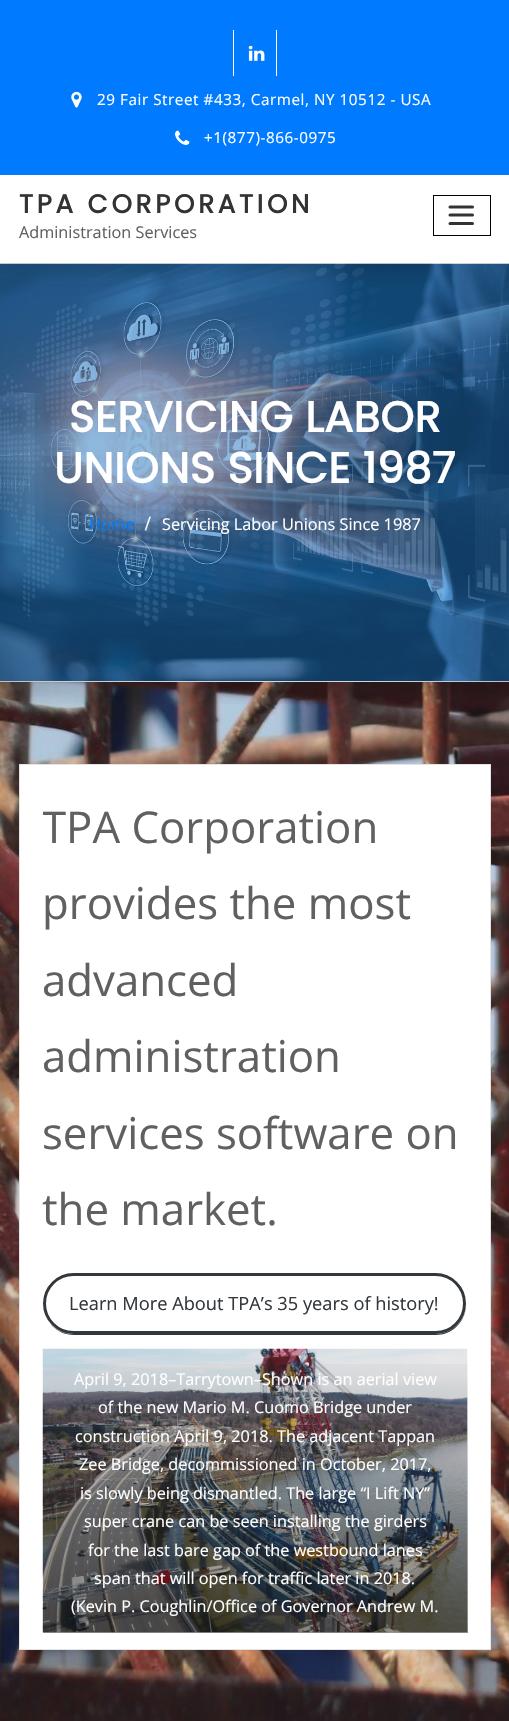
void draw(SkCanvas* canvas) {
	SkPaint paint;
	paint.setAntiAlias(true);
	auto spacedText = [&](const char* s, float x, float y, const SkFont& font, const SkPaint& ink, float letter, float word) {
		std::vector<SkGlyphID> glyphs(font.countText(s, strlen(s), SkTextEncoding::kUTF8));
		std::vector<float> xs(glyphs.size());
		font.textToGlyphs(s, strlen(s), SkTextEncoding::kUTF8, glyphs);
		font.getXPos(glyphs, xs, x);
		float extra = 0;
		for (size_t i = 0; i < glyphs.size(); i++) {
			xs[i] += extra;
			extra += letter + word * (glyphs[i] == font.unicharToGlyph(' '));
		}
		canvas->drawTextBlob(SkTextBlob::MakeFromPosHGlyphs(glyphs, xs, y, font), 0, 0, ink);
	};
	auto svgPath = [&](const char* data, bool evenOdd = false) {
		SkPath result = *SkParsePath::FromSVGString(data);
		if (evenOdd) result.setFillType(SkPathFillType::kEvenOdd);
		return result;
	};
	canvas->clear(0xffffffff);
	canvas->drawImageRect(SkImages::DeferredFromEncodedData(SkData::MakeFromFileName("img1.png")), SkRect::MakeXYWH(0, 682, 509, 1039), SkSamplingOptions());
	paint.setColor(0xff007bff);
	canvas->drawRect(SkRect::MakeXYWH(0, 0, 509, 175), paint);
	paint.setColor(0xffffffff);
	canvas->drawRect(SkRect::MakeXYWH(276, 30, 1, 46), paint);
	canvas->drawRect(SkRect::MakeXYWH(233, 30, 1, 46), paint);
	canvas->drawImageRect(SkImages::DeferredFromEncodedData(SkData::MakeFromFileName("img2.png")), SkRect::MakeXYWH(248, 45, 17, 16), SkSamplingOptions());
	canvas->drawImageRect(SkImages::DeferredFromEncodedData(SkData::MakeFromFileName("img3.png")), SkRect::MakeXYWH(71, 91, 11, 17), SkSamplingOptions());
	SkFont f1(fontMgr->matchFamilyStyle("Open Sans", SkFontStyle::Normal()), 15.25);
	f1.setSubpixel(true);
	spacedText("29 Fair Street #433, Carmel, NY 10512 - USA", 97, 105, f1, paint, 0.55, 0);
	canvas->drawImageRect(SkImages::DeferredFromEncodedData(SkData::MakeFromFileName("img4.png")), SkRect::MakeXYWH(175, 130, 15, 15), SkSamplingOptions());
	spacedText("+1(877)-866-0975", 204, 143, f1, paint, 0.55, 0);
	SkFont f2(fontMgr->matchFamilyStyle("Poppins", SkFontStyle::Bold()), 26);
	f2.setSubpixel(true);
	paint.setColor(0xff333333);
	spacedText("TPA CORPORATION", 19, 213, f2, paint, 3.75, 0);
	SkFont f3(fontMgr->matchFamilyStyle("Open Sans", SkFontStyle::Normal()), 16.25);
	f3.setSubpixel(true);
	paint.setColor(0xff606060);
	canvas->drawString("Administration Services", 19, 238, f3, paint);
	paint.setStroke(true);
	paint.setStrokeWidth(1);
	paint.setColor(0xff000000);
	canvas->drawRect(SkRect::MakeXYWH(433.5, 195.5, 57, 40), paint);
	paint.setStrokeWidth(3);
	paint.setStrokeCap(SkPaint::kRound_Cap);
	paint.setColor(0xff333333);
	canvas->drawPath(svgPath("M450 207H472.5M450 215H472.5M450 223.5H472.5"), paint);
	canvas->drawImageRect(SkImages::DeferredFromEncodedData(SkData::MakeFromFileName("img5.png")), SkRect::MakeXYWH(0, 263, 509, 418), SkSamplingOptions());
	SkFont f4(fontMgr->matchFamilyStyle("Poppins", SkFontStyle::Bold()), 42.75);
	f4.setSubpixel(true);
	paint.setStroke(false);
	paint.setColor(0xffffffff);
	spacedText("SERVICING LABOR", 69, 432, f4, paint, 0.55, 0);
	spacedText("UNIONS SINCE 1987", 54, 483, f4, paint, 0.55, 0);
	paint.setColor(0xff007bff);
	canvas->drawString("Home", 89, 530, f3, paint);
	SkFont f5(fontMgr->matchFamilyStyle("Liberation Serif", SkFontStyle::Bold()), 20);
	f5.setSubpixel(true);
	paint.setColor(0xffffffff);
	spacedText("/", 145, 530, f5, paint, 2, 0);
	canvas->drawString("Servicing Labor Unions Since 1987", 162, 530, f3, paint);
	paint.setColor(0xffe4e4e4);
	canvas->drawRect(SkRect::MakeXYWH(0, 681, 509, 1), paint);
	canvas->drawImageRect(SkImages::DeferredFromEncodedData(SkData::MakeFromFileName("img6.png")), SkRect::MakeXYWH(0, 681, 509, 23), SkSamplingOptions());
	paint.setColor(0xffffffff);
	canvas->drawRect(SkRect::MakeXYWH(19.5, 764.5, 471, 885), paint);
	paint.setStroke(true);
	paint.setStrokeWidth(1);
	paint.setStrokeCap(SkPaint::kButt_Cap);
	paint.setColor(0xffe4e4e4);
	canvas->drawRect(SkRect::MakeXYWH(19.5, 764.5, 471, 885), paint);
	canvas->save();
	canvas->clipRect(SkRect::MakeXYWH(43, 788, 425, 845));
	SkFont f6(fontMgr->matchFamilyStyle("Open Sans", SkFontStyle::Normal()), 43.75);
	f6.setSubpixel(true);
	paint.setStroke(false);
	paint.setColor(0xff606060);
	canvas->drawString("TPA Corporation", 42, 843, f6, paint);
	canvas->restore();
	canvas->drawString("provides the most", 42, 919, f6, paint);
	canvas->drawString("advanced", 42, 996, f6, paint);
	canvas->drawString("administration", 42, 1072, f6, paint);
	canvas->drawString("services software on", 42, 1149, f6, paint);
	canvas->drawString("the market.", 42, 1225, f6, paint);
	paint.setColor(0xff32373c);
	canvas->drawPath(svgPath("M45 1314C49 1326 60 1335 74 1335H436C451 1335 463 1324 466 1309C463 1323 450 1334 436 1334H73C60 1334 49 1326 45 1314Z"), paint);
	paint.setStroke(true);
	paint.setStrokeWidth(3);
	canvas->drawRoundRect(SkRect::MakeXYWH(44.5, 1274.5, 420, 58), 29, 29, paint);
	SkFont f7(fontMgr->matchFamilyStyle("Open Sans", SkFontStyle::Normal()), 18.25);
	f7.setSubpixel(true);
	paint.setStroke(false);
	canvas->drawString("Learn More About TPA’s 35 years of history!", 69, 1310, f7, paint);
	canvas->drawImageRect(SkImages::DeferredFromEncodedData(SkData::MakeFromFileName("img7.png")), SkRect::MakeXYWH(42, 1348, 426, 285), SkSamplingOptions());
	{
		const SkColor colors[] = {0x66000000, 0x00000000};
		const float stops[] = {0, 1};
		const SkPoint ends[] = {{255, 1633}, {255, 1349}};
		paint.setShader(SkGradientShader::MakeLinear(ends, colors, stops, 2, SkTileMode::kClamp));
		paint.setAlpha(255);
	}
	canvas->drawRect(SkRect::MakeXYWH(43, 1364, 425, 269), paint);
	paint.setShader(nullptr);
	paint.setColor(0xffffffff);
	canvas->drawString("April 9, 2018–Tarrytown–Shown is an aerial view", 74, 1385, f3, paint);
	canvas->drawString("of the new Mario M. Cuomo Bridge under", 98, 1413, f3, paint);
	canvas->drawString("construction April 9, 2018. The adjacent Tappan", 75, 1442, f3, paint);
	canvas->drawString("Zee Bridge, decommissioned in October, 2017,", 79, 1470, f3, paint);
	canvas->drawString("is slowly being dismantled. The large “I Lift NY”", 80, 1499, f3, paint);
	canvas->drawString("super crane can be seen installing the girders", 84, 1527, f3, paint);
	canvas->drawString("for the last bare gap of the westbound lanes", 88, 1556, f3, paint);
	canvas->drawString("span that will open for traffic later in 2018.", 94, 1584, f3, paint);
	canvas->drawString("(Kevin P. Coughlin/Office of Governor Andrew M.", 71, 1612, f3, paint);
}
